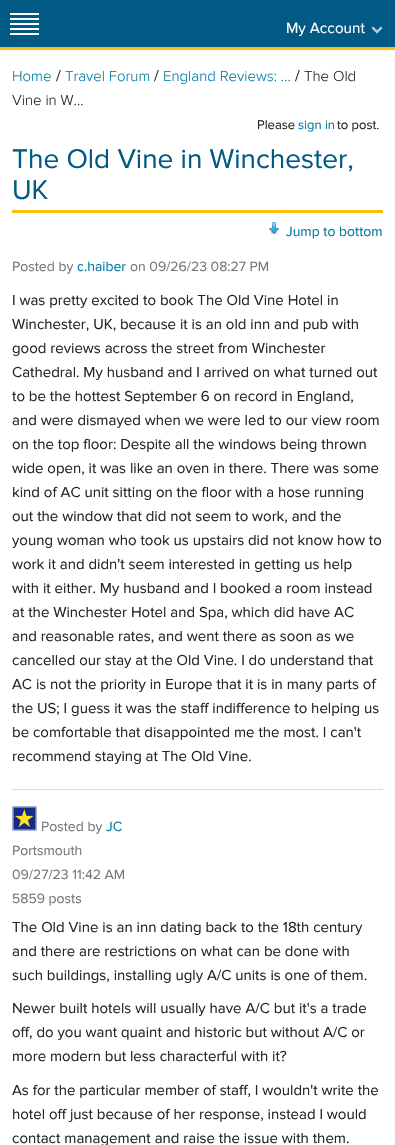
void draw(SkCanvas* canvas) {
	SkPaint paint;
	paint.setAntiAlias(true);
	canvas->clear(0xffffffff);
	paint.setColor(0xff005a84);
	canvas->drawRect(SkRect::MakeXYWH(0, 0, 395, 47), paint);
	paint.setColor(0xfffebe11);
	canvas->drawRect(SkRect::MakeXYWH(0, 47, 395, 3), paint);
	canvas->drawImageRect(SkImages::DeferredFromEncodedData(SkData::MakeFromFileName("img1.png")), SkRect::MakeXYWH(10, 13, 29, 22), SkSamplingOptions());
	SkFont f1(fontMgr->matchFamilyStyle("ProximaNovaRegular", SkFontStyle::Normal()), 15.25);
	f1.setSubpixel(true);
	paint.setColor(0xffffffff);
	canvas->drawString("My Account", 286, 33, f1, paint);
	canvas->drawImageRect(SkImages::DeferredFromEncodedData(SkData::MakeFromFileName("img2.png")), SkRect::MakeXYWH(371, 26, 12, 8), SkSamplingOptions());
	SkFont f2(fontMgr->matchFamilyStyle("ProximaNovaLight", SkFontStyle(300, SkFontStyle::kNormal_Width, SkFontStyle::kUpright_Slant)), 15);
	f2.setSubpixel(true);
	paint.setColor(0xff007aa3);
	canvas->drawString("Home", 12, 81, f2, paint);
	SkFont f3(fontMgr->matchFamilyStyle("ProximaNovaRegular", SkFontStyle::Normal()), 16);
	f3.setSubpixel(true);
	paint.setColor(0xff252525);
	canvas->drawString("/", 56, 81, f3, paint);
	paint.setColor(0xff007aa3);
	canvas->drawString("Travel Forum", 65, 81, f2, paint);
	paint.setColor(0xff252525);
	canvas->drawString("/", 154, 81, f3, paint);
	paint.setColor(0xff007aa3);
	canvas->drawString("England Reviews: ...", 163, 81, f2, paint);
	paint.setColor(0xff252525);
	canvas->drawString("/", 295, 81, f3, paint);
	canvas->drawString("The Old", 304, 81, f2, paint);
	canvas->drawString("Vine in W...", 12, 105, f2, paint);
	SkFont f4(fontMgr->matchFamilyStyle("ProximaNovaRegular", SkFontStyle::Normal()), 13);
	f4.setSubpixel(true);
	canvas->drawString("Please", 257, 129, f4, paint);
	paint.setColor(0xff007aa3);
	canvas->drawString("sign in", 298, 129, f4, paint);
	paint.setColor(0xff252525);
	canvas->drawString("to post.", 337, 129, f4, paint);
	paint.setColor(0xffdadada);
	canvas->drawRect(SkRect::MakeXYWH(12, 789, 371, 1), paint);
	paint.setColor(0xfffebe11);
	canvas->drawRect(SkRect::MakeXYWH(12, 210, 371, 3), paint);
	SkFont f5(fontMgr->matchFamilyStyle("ProximaNovaRegular", SkFontStyle::Normal()), 28);
	f5.setSubpixel(true);
	paint.setColor(0xff005a84);
	canvas->drawString("The Old Vine in Winchester,", 12, 168, f5, paint);
	canvas->drawString("UK", 12, 199, f5, paint);
	canvas->drawImageRect(SkImages::DeferredFromEncodedData(SkData::MakeFromFileName("img3.png")), SkRect::MakeXYWH(269, 222, 10, 12), SkSamplingOptions());
	SkFont f6(fontMgr->matchFamilyStyle("ProximaNovaRegular", SkFontStyle::Normal()), 14);
	f6.setSubpixel(true);
	paint.setColor(0xff007aa3);
	canvas->drawString("Jump to bottom", 286, 236, f6, paint);
	paint.setColor(0xff757575);
	canvas->drawString("Posted by", 12, 271, f6, paint);
	paint.setColor(0xff007aa3);
	canvas->drawString("c.haiber", 77, 271, f6, paint);
	paint.setColor(0xff757575);
	canvas->drawString("on 09/26/23 08:27 PM", 130, 271, f6, paint);
	SkFont f7(fontMgr->matchFamilyStyle("ProximaNovaRegular", SkFontStyle::Normal()), 15);
	f7.setSubpixel(true);
	paint.setColor(0xff252525);
	canvas->drawString("I was pretty excited to book The Old Vine Hotel in", 12, 305, f7, paint);
	canvas->drawString("Winchester, UK, because it is an old inn and pub with", 12, 329, f7, paint);
	canvas->drawString("good reviews across the street from Winchester", 12, 353, f7, paint);
	canvas->drawString("Cathedral. My husband and I arrived on what turned out", 12, 377, f7, paint);
	canvas->drawString("to be the hottest September 6 on record in England,", 12, 401, f7, paint);
	canvas->drawString("and were dismayed when we were led to our view room", 12, 425, f7, paint);
	canvas->drawString("on the top floor: Despite all the windows being thrown", 12, 449, f7, paint);
	canvas->drawString("wide open, it was like an oven in there. There was some", 12, 473, f7, paint);
	canvas->drawString("kind of AC unit sitting on the floor with a hose running", 12, 497, f7, paint);
	canvas->drawString("out the window that did not seem to work, and the", 12, 521, f7, paint);
	canvas->drawString("young woman who took us upstairs did not know how to", 12, 545, f7, paint);
	canvas->drawString("work it and didn't seem interested in getting us help", 12, 569, f7, paint);
	canvas->drawString("with it either. My husband and I booked a room instead", 12, 593, f7, paint);
	canvas->drawString("at the Winchester Hotel and Spa, which did have AC", 12, 617, f7, paint);
	canvas->drawString("and reasonable rates, and went there as soon as we", 12, 641, f7, paint);
	canvas->drawString("cancelled our stay at the Old Vine. I do understand that", 12, 665, f7, paint);
	canvas->drawString("AC is not the priority in Europe that it is in many parts of", 12, 689, f7, paint);
	canvas->drawString("the US; I guess it was the staff indifference to helping us", 12, 713, f7, paint);
	canvas->drawString("be comfortable that disappointed me the most. I can't", 12, 737, f7, paint);
	canvas->drawString("recommend staying at The Old Vine.", 12, 761, f7, paint);
	canvas->drawImageRect(SkImages::DeferredFromEncodedData(SkData::MakeFromFileName("img4.png")), SkRect::MakeXYWH(12, 806, 25, 25), SkSamplingOptions());
	paint.setColor(0xff007aa3);
	canvas->drawString("JC", 106, 831, f6, paint);
	paint.setColor(0xff757575);
	canvas->drawString("Portsmouth", 12, 855, f6, paint);
	canvas->drawString("Posted by", 41, 831, f6, paint);
	canvas->drawString("09/27/23 11:42 AM", 12, 879, f6, paint);
	canvas->drawString("5859 posts", 12, 903, f6, paint);
	paint.setColor(0xff252525);
	canvas->drawString("The Old Vine is an inn dating back to the 18th century", 12, 932, f7, paint);
	canvas->drawString("and there are restrictions on what can be done with", 12, 956, f7, paint);
	canvas->drawString("such buildings, installing ugly A/C units is one of them.", 12, 980, f7, paint);
	canvas->drawString("Newer built hotels will usually have A/C but it's a trade", 12, 1013, f7, paint);
	canvas->drawString("off, do you want quaint and historic but without A/C or", 12, 1037, f7, paint);
	canvas->drawString("more modern but less characterful with it?", 12, 1061, f7, paint);
	canvas->drawString("As for the particular member of staff, I wouldn't write the", 12, 1095, f7, paint);
	canvas->drawString("hotel off just because of her response, instead I would", 12, 1119, f7, paint);
	canvas->drawString("contact management and raise the issue with them.", 12, 1143, f7, paint);
}
